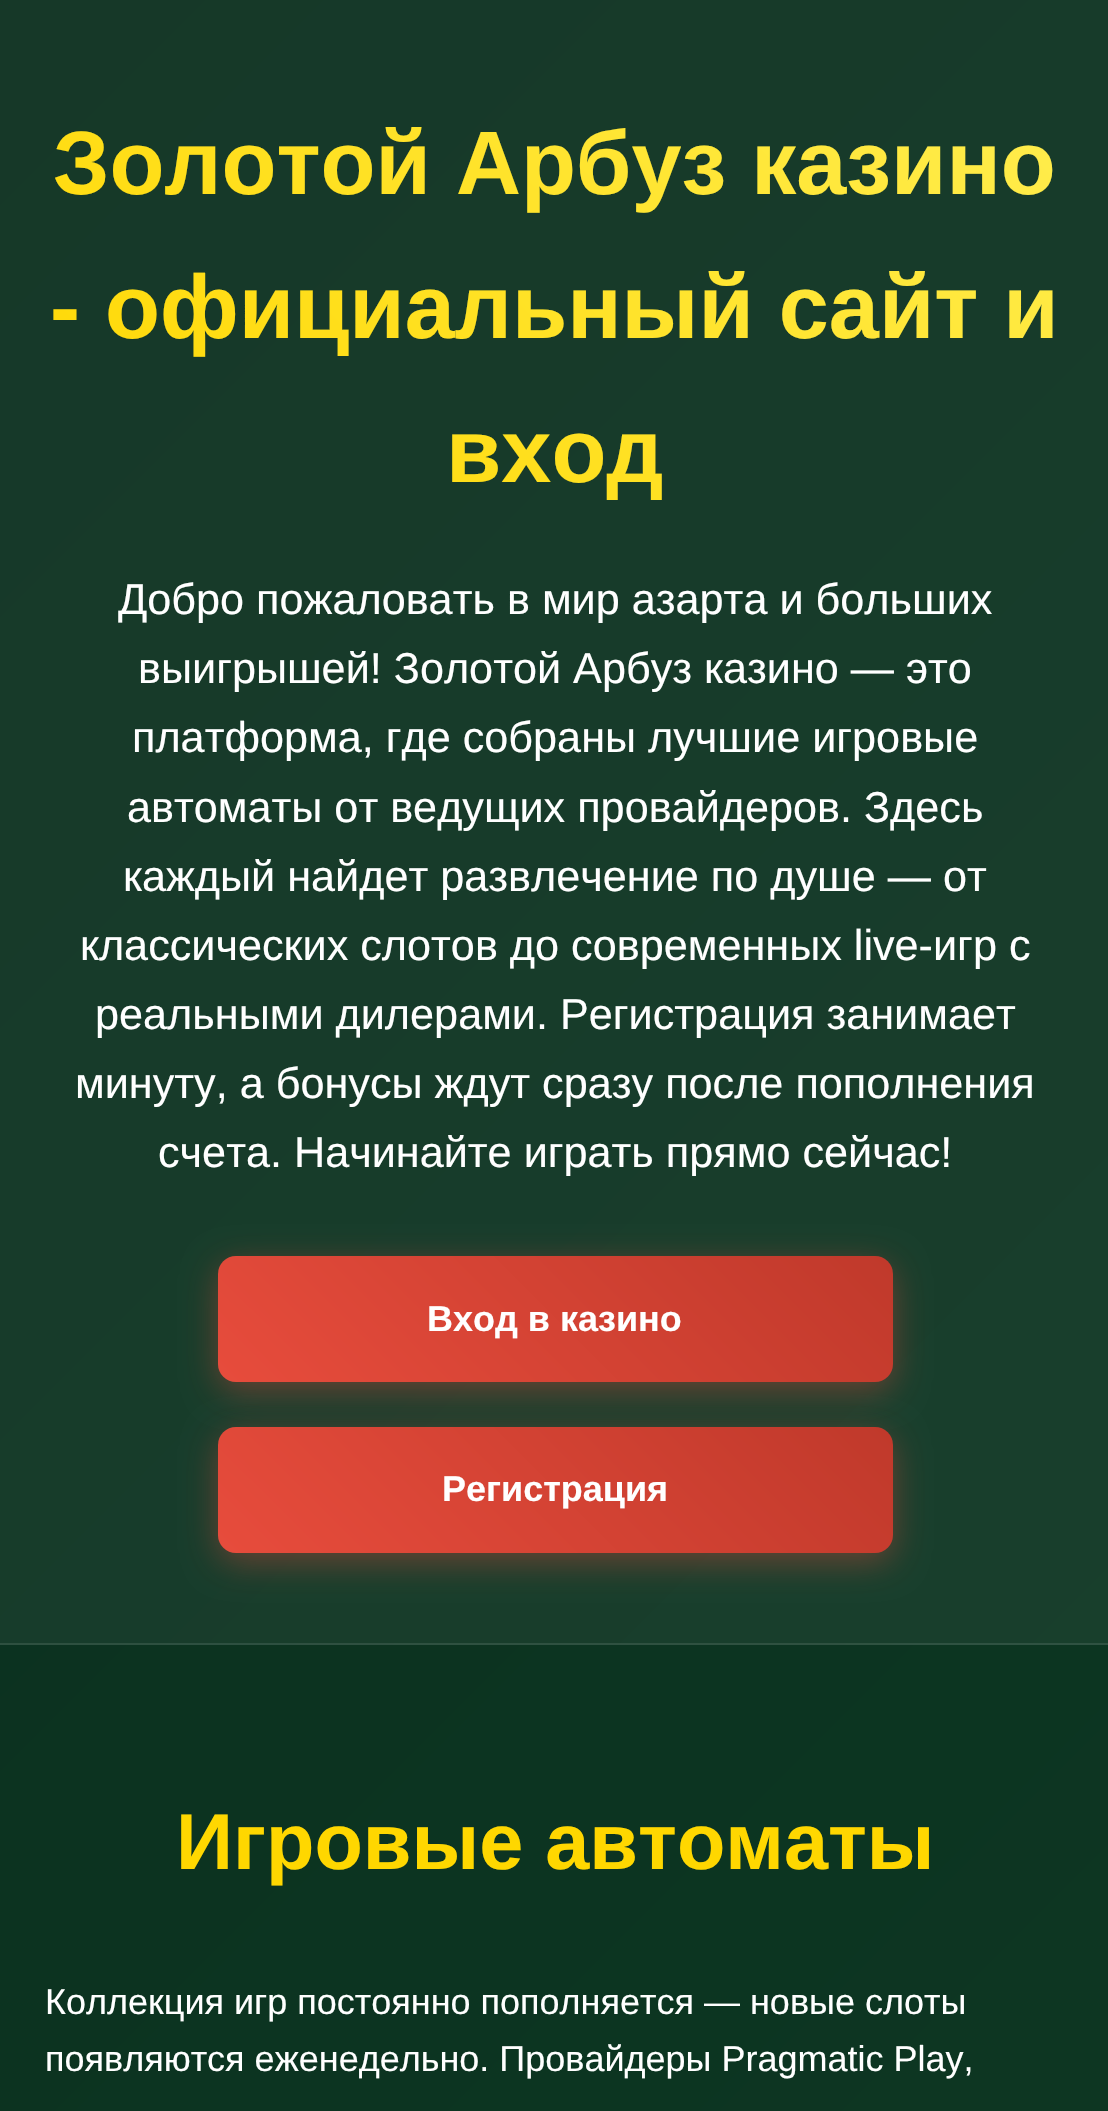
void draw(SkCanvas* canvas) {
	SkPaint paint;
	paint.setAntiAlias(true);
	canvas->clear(0xffffffff);
	{
		const SkColor colors[] = {0xff0a2e1d, 0xff1a5c3a};
		const float stops[] = {0, 1};
		const SkPoint ends[] = {{-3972, 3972}, {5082, 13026}};
		paint.setShader(SkGradientShader::MakeLinear(ends, colors, stops, 2, SkTileMode::kClamp));
		paint.setAlpha(255);
	}
	canvas->drawRect(SkRect::MakeXYWH(0, 1645, 1108, 466), paint);
	{
		const SkColor colors[] = {0xff163828, 0xff256444};
		const float stops[] = {0, 1};
		const SkPoint ends[] = {{-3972, 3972}, {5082, 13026}};
		paint.setShader(SkGradientShader::MakeLinear(ends, colors, stops, 2, SkTileMode::kClamp));
		paint.setAlpha(255);
	}
	canvas->drawRect(SkRect::MakeXYWH(0, 0, 1108, 1643), paint);
	{
		const SkColor colors[] = {0xff2d4c3e, 0xff3b7457};
		const float stops[] = {0, 1};
		const SkPoint ends[] = {{-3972, 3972}, {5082, 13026}};
		paint.setShader(SkGradientShader::MakeLinear(ends, colors, stops, 2, SkTileMode::kClamp));
		paint.setAlpha(255);
	}
	canvas->drawRect(SkRect::MakeXYWH(0, 1643, 1108, 2), paint);
	SkFont f1(fontMgr->matchFamilyStyle("Liberation Sans", SkFontStyle::Bold()), 90);
	f1.setSubpixel(true);
	{
		const SkColor colors[] = {0xffffd700, 0xffffed4e};
		const float stops[] = {0, 1};
		const SkPoint ends[] = {{192, 669}, {917, -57}};
		paint.setShader(SkGradientShader::MakeLinear(ends, colors, stops, 2, SkTileMode::kClamp));
		paint.setAlpha(255);
	}
	canvas->drawString("Золотой Арбуз казино", 53, 194, f1, paint);
	canvas->drawString("- официальный сайт и", 50, 338, f1, paint);
	canvas->drawString("вход", 446, 482, f1, paint);
	SkFont f2(fontMgr->matchFamilyStyle("Liberation Sans", SkFontStyle::Normal()), 43.2);
	f2.setSubpixel(true);
	paint.setShader(nullptr);
	paint.setColor(0xffffffff);
	canvas->drawString("Добро пожаловать в мир азарта и больших", 118, 614, f2, paint);
	canvas->drawString("выигрышей! Золотой Арбуз казино — это", 138, 683, f2, paint);
	canvas->drawString("платформа, где собраны лучшие игровые", 132, 752, f2, paint);
	canvas->drawString("автоматы от ведущих провайдеров. Здесь", 127, 822, f2, paint);
	canvas->drawString("каждый найдет развлечение по душе — от", 123, 891, f2, paint);
	canvas->drawString("классических слотов до современных live-игр с", 80, 960, f2, paint);
	canvas->drawString("реальными дилерами. Регистрация занимает", 95, 1029, f2, paint);
	canvas->drawString("минуту, а бонусы ждут сразу после пополнения", 75, 1098, f2, paint);
	canvas->drawString("счета. Начинайте играть прямо сейчас!", 158, 1167, f2, paint);
	paint.setColor(0x66e74c3c);
	paint.setMaskFilter(SkMaskFilter::MakeBlur(kNormal_SkBlurStyle, 17));
	canvas->drawRoundRect(SkRect::MakeXYWH(218, 1265, 675, 126), 18, 18, paint);
	paint.setMaskFilter(nullptr);
	{
		const SkColor colors[] = {0xffe74c3c, 0xffc0392b};
		const float stops[] = {0, 1};
		const SkPoint ends[] = {{356, 1519}, {756, 1118}};
		paint.setShader(SkGradientShader::MakeLinear(ends, colors, stops, 2, SkTileMode::kClamp));
		paint.setAlpha(255);
	}
	canvas->drawRoundRect(SkRect::MakeXYWH(218, 1256, 675, 126), 18, 18, paint);
	SkFont f3(fontMgr->matchFamilyStyle("Liberation Sans", SkFontStyle::Bold()), 36);
	f3.setSubpixel(true);
	paint.setShader(nullptr);
	paint.setColor(0xffffffff);
	canvas->drawString("Вход в казино", 427, 1331, f3, paint);
	paint.setColor(0x66e74c3c);
	paint.setMaskFilter(SkMaskFilter::MakeBlur(kNormal_SkBlurStyle, 17));
	canvas->drawRoundRect(SkRect::MakeXYWH(218, 1436, 675, 126), 18, 18, paint);
	paint.setMaskFilter(nullptr);
	{
		const SkColor colors[] = {0xffe74c3c, 0xffc0392b};
		const float stops[] = {0, 1};
		const SkPoint ends[] = {{356, 1690}, {756, 1289}};
		paint.setShader(SkGradientShader::MakeLinear(ends, colors, stops, 2, SkTileMode::kClamp));
		paint.setAlpha(255);
	}
	canvas->drawRoundRect(SkRect::MakeXYWH(218, 1427, 675, 126), 18, 18, paint);
	paint.setShader(nullptr);
	paint.setColor(0xffffffff);
	canvas->drawString("Регистрация", 442, 1501, f3, paint);
	SkFont f4(fontMgr->matchFamilyStyle("Liberation Sans", SkFontStyle::Bold()), 79.25);
	f4.setSubpixel(true);
	paint.setColor(0xffffd700);
	canvas->drawString("Игровые автоматы", 176, 1869, f4, paint);
	SkFont f5(fontMgr->matchFamilyStyle("Liberation Sans", SkFontStyle::Normal()), 36);
	f5.setSubpixel(true);
	paint.setColor(0xffffffff);
	canvas->drawString("Коллекция игр постоянно пополняется — новые слоты", 45, 2014, f5, paint);
	canvas->drawString("появляются еженедельно. Провайдеры Pragmatic Play,", 45, 2071, f5, paint);
}
